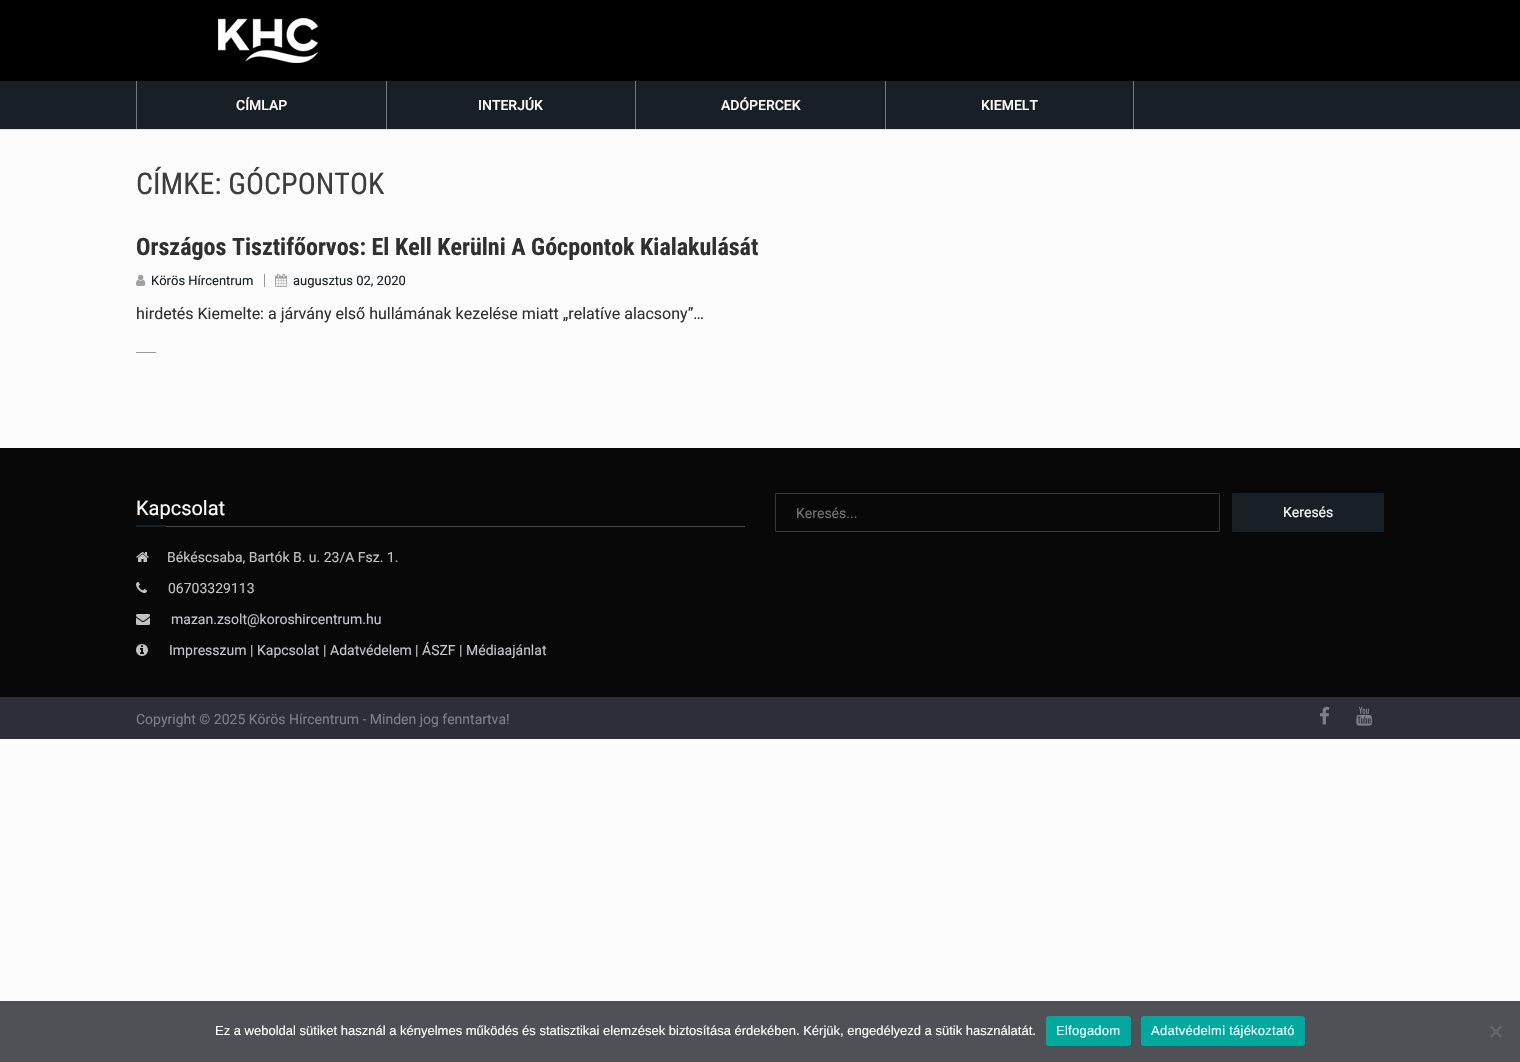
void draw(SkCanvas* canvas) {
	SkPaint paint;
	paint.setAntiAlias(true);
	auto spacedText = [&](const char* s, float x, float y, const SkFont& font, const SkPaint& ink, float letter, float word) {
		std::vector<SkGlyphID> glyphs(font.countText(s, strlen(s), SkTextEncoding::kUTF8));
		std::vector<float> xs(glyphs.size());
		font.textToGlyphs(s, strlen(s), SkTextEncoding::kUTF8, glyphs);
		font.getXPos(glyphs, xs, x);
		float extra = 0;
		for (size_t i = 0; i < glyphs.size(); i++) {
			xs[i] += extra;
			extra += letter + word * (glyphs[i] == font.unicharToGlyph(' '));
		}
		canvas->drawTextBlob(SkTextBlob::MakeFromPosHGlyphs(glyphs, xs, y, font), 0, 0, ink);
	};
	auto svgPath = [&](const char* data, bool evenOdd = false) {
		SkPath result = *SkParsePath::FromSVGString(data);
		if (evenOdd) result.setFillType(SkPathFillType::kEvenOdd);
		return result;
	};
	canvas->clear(0xfffcfcfc);
	paint.setColor(0xff000000);
	canvas->drawRect(SkRect::MakeXYWH(0, 0, 1520, 81), paint);
	canvas->drawImageRect(SkImages::DeferredFromEncodedData(SkData::MakeFromFileName("img1.png")), SkRect::MakeXYWH(218, 18, 100, 45), SkSamplingOptions());
	paint.setColor(0xff181f25);
	canvas->drawRect(SkRect::MakeXYWH(0, 81, 1520, 48), paint);
	paint.setColor(0xff74797c);
	canvas->drawRect(SkRect::MakeXYWH(136, 81, 1, 48), paint);
	SkFont f1(fontMgr->matchFamilyStyle("Roboto", SkFontStyle(500, SkFontStyle::kNormal_Width, SkFontStyle::kUpright_Slant)), 14);
	f1.setSubpixel(true);
	paint.setColor(0xffffffff);
	canvas->drawString("CÍMLAP", 236, 110, f1, paint);
	paint.setColor(0xff74797c);
	canvas->drawRect(SkRect::MakeXYWH(386, 81, 1, 48), paint);
	paint.setColor(0xffffffff);
	canvas->drawString("INTERJÚK", 478, 110, f1, paint);
	paint.setColor(0xff74797c);
	canvas->drawRect(SkRect::MakeXYWH(635, 81, 1, 48), paint);
	paint.setColor(0xffffffff);
	canvas->drawString("ADÓPERCEK", 721, 110, f1, paint);
	paint.setColor(0xff74797c);
	canvas->drawRect(SkRect::MakeXYWH(1133, 81, 1, 48), paint);
	canvas->drawRect(SkRect::MakeXYWH(885, 81, 1, 48), paint);
	paint.setColor(0xffffffff);
	canvas->drawString("KIEMELT", 981, 110, f1, paint);
	paint.setColor(0xffe3e3e3);
	canvas->drawRect(SkRect::MakeXYWH(0, 129, 1520, 1), paint);
	SkFont f2(fontMgr->matchFamilyStyle("Roboto Condensed", SkFontStyle::Normal()), 30);
	f2.setSubpixel(true);
	paint.setColor(0xff3d3d3d);
	canvas->drawString("CÍMKE: GÓCPONTOK", 136, 194, f2, paint);
	SkFont f3(fontMgr->matchFamilyStyle("Roboto Condensed", SkFontStyle::Bold()), 24);
	f3.setSubpixel(true);
	paint.setColor(0xff303030);
	canvas->drawString("Országos Tisztifőorvos: El Kell Kerülni A Gócpontok Kialakulását", 136, 255, f3, paint);
	canvas->drawImageRect(SkImages::DeferredFromEncodedData(SkData::MakeFromFileName("img2.png")), SkRect::MakeXYWH(136, 274, 10, 12), SkSamplingOptions());
	SkFont f4(fontMgr->matchFamilyStyle("Roboto", SkFontStyle::Normal()), 13);
	f4.setSubpixel(true);
	paint.setColor(0xff181f25);
	canvas->drawString("Körös Hírcentrum", 151, 285, f4, paint);
	paint.setColor(0xff999999);
	canvas->drawRect(SkRect::MakeXYWH(264, 274, 1, 13), paint);
	canvas->drawImageRect(SkImages::DeferredFromEncodedData(SkData::MakeFromFileName("img3.png")), SkRect::MakeXYWH(275, 273, 13, 14), SkSamplingOptions());
	paint.setColor(0xff181f25);
	canvas->drawString("augusztus 02, 2020", 293, 285, f4, paint);
	SkFont f5(fontMgr->matchFamilyStyle("Roboto", SkFontStyle::Normal()), 16);
	f5.setSubpixel(true);
	paint.setColor(0xff303030);
	canvas->drawString("hirdetés Kiemelte: a járvány első hullámának kezelése miatt „relatíve alacsony”…", 136, 319, f5, paint);
	paint.setColor(0xff999999);
	canvas->drawRect(SkRect::MakeXYWH(136, 352, 20, 1), paint);
	paint.setColor(0xff080808);
	canvas->drawRect(SkRect::MakeXYWH(0, 448, 1520, 249), paint);
	SkFont f6(fontMgr->matchFamilyStyle("Roboto", SkFontStyle::Normal()), 20);
	f6.setSubpixel(true);
	paint.setColor(0xffffffff);
	canvas->drawString("Kapcsolat", 136, 515, f6, paint);
	paint.setColor(0xff181f25);
	canvas->drawRect(SkRect::MakeXYWH(136, 525, 30, 2), paint);
	paint.setColor(0xff474747);
	canvas->drawRect(SkRect::MakeXYWH(166, 526, 579, 1), paint);
	canvas->drawImageRect(SkImages::DeferredFromEncodedData(SkData::MakeFromFileName("img4.png")), SkRect::MakeXYWH(136, 552, 13, 10), SkSamplingOptions());
	SkFont f7(fontMgr->matchFamilyStyle("Roboto", SkFontStyle::Normal()), 14);
	f7.setSubpixel(true);
	paint.setColor(0xffc2c2c2);
	canvas->drawString("Békéscsaba, Bartók B. u. 23/A Fsz. 1.", 167, 562, f7, paint);
	canvas->drawImageRect(SkImages::DeferredFromEncodedData(SkData::MakeFromFileName("img5.png")), SkRect::MakeXYWH(136, 582, 11, 11), SkSamplingOptions());
	canvas->drawString("06703329113", 168, 593, f7, paint);
	canvas->drawImageRect(SkImages::DeferredFromEncodedData(SkData::MakeFromFileName("img6.png")), SkRect::MakeXYWH(136, 614, 14, 11), SkSamplingOptions());
	paint.setColor(0xffc4c5cd);
	canvas->drawString("mazan.zsolt@koroshircentrum.hu", 171, 624, f7, paint);
	canvas->drawImageRect(SkImages::DeferredFromEncodedData(SkData::MakeFromFileName("img7.png")), SkRect::MakeXYWH(136, 644, 12, 12), SkSamplingOptions());
	canvas->drawString("Impresszum", 169, 655, f7, paint);
	paint.setColor(0xffc2c2c2);
	canvas->drawString("|", 250, 655, f7, paint);
	paint.setColor(0xffc4c5cd);
	canvas->drawString("Kapcsolat", 257, 655, f7, paint);
	paint.setColor(0xffc2c2c2);
	canvas->drawString("|", 323, 655, f7, paint);
	paint.setColor(0xffc4c5cd);
	canvas->drawString("Adatvédelem", 330, 655, f7, paint);
	paint.setColor(0xffc2c2c2);
	canvas->drawString("|", 415, 655, f7, paint);
	paint.setColor(0xffc4c5cd);
	canvas->drawString("ÁSZF", 422, 655, f7, paint);
	paint.setColor(0xffc2c2c2);
	canvas->drawString("|", 459, 655, f7, paint);
	paint.setColor(0xffc4c5cd);
	canvas->drawString("Médiaajánlat", 466, 655, f7, paint);
	paint.setStroke(true);
	paint.setStrokeWidth(1);
	paint.setColor(0xff393939);
	canvas->drawRoundRect(SkRect::MakeXYWH(775.5, 493.5, 444, 38), 0.5, 0.5, paint);
	paint.setStroke(false);
	paint.setColor(0xff757575);
	canvas->drawString("Keresés...", 796, 518, f7, paint);
	paint.setColor(0xff181f25);
	canvas->drawRoundRect(SkRect::MakeXYWH(1232, 493, 152, 39), 1, 1, paint);
	paint.setColor(0xffffffff);
	canvas->drawString("Keresés", 1283, 517, f7, paint);
	paint.setColor(0xff2d2e39);
	canvas->drawRect(SkRect::MakeXYWH(0, 697, 1520, 42), paint);
	paint.setColor(0xff7e7f8c);
	canvas->drawString("Copyright © 2025 Körös Hírcentrum - Minden jog fenntartva!", 136, 724, f7, paint);
	canvas->drawImageRect(SkImages::DeferredFromEncodedData(SkData::MakeFromFileName("img8.png")), SkRect::MakeXYWH(1320, 706, 10, 19), SkSamplingOptions());
	canvas->drawImageRect(SkImages::DeferredFromEncodedData(SkData::MakeFromFileName("img9.png")), SkRect::MakeXYWH(1356, 706, 16, 20), SkSamplingOptions());
	paint.setColor(0xff505057);
	canvas->drawRect(SkRect::MakeXYWH(0, 1001, 1520, 61), paint);
	SkFont f8(fontMgr->matchFamilyStyle("Liberation Sans", SkFontStyle::Normal()), 13);
	f8.setSubpixel(true);
	paint.setColor(0xffffffff);
	canvas->drawString("Ez a weboldal sütiket használ a kényelmes működés és statisztikai elemzések biztosítása érdekében. Kérjük, engedélyezd a sütik használatát.", 215, 1035, f8, paint);
	paint.setColor(0xff00a99d);
	canvas->drawRoundRect(SkRect::MakeXYWH(1046, 1016, 85, 30), 3, 3, paint);
	paint.setColor(0xffffffff);
	spacedText("Elfogadom", 1056, 1035, f8, paint, 0.25, 0);
	paint.setColor(0xff00a99d);
	canvas->drawRoundRect(SkRect::MakeXYWH(1141, 1016, 164, 30), 3, 3, paint);
	paint.setColor(0xffffffff);
	spacedText("Adatvédelmi tájékoztató", 1151, 1035, f8, paint, 0.25, 0);
	paint.setColor(0xff68686c);
	canvas->drawPath(svgPath("M1500.5 1025.5L1502 1027L1491.5 1038L1490 1036.5Z"), paint);
	canvas->drawPath(svgPath("M1490 1027L1491.5 1025.5L1502 1036.5L1500.5 1038Z"), paint);
}
